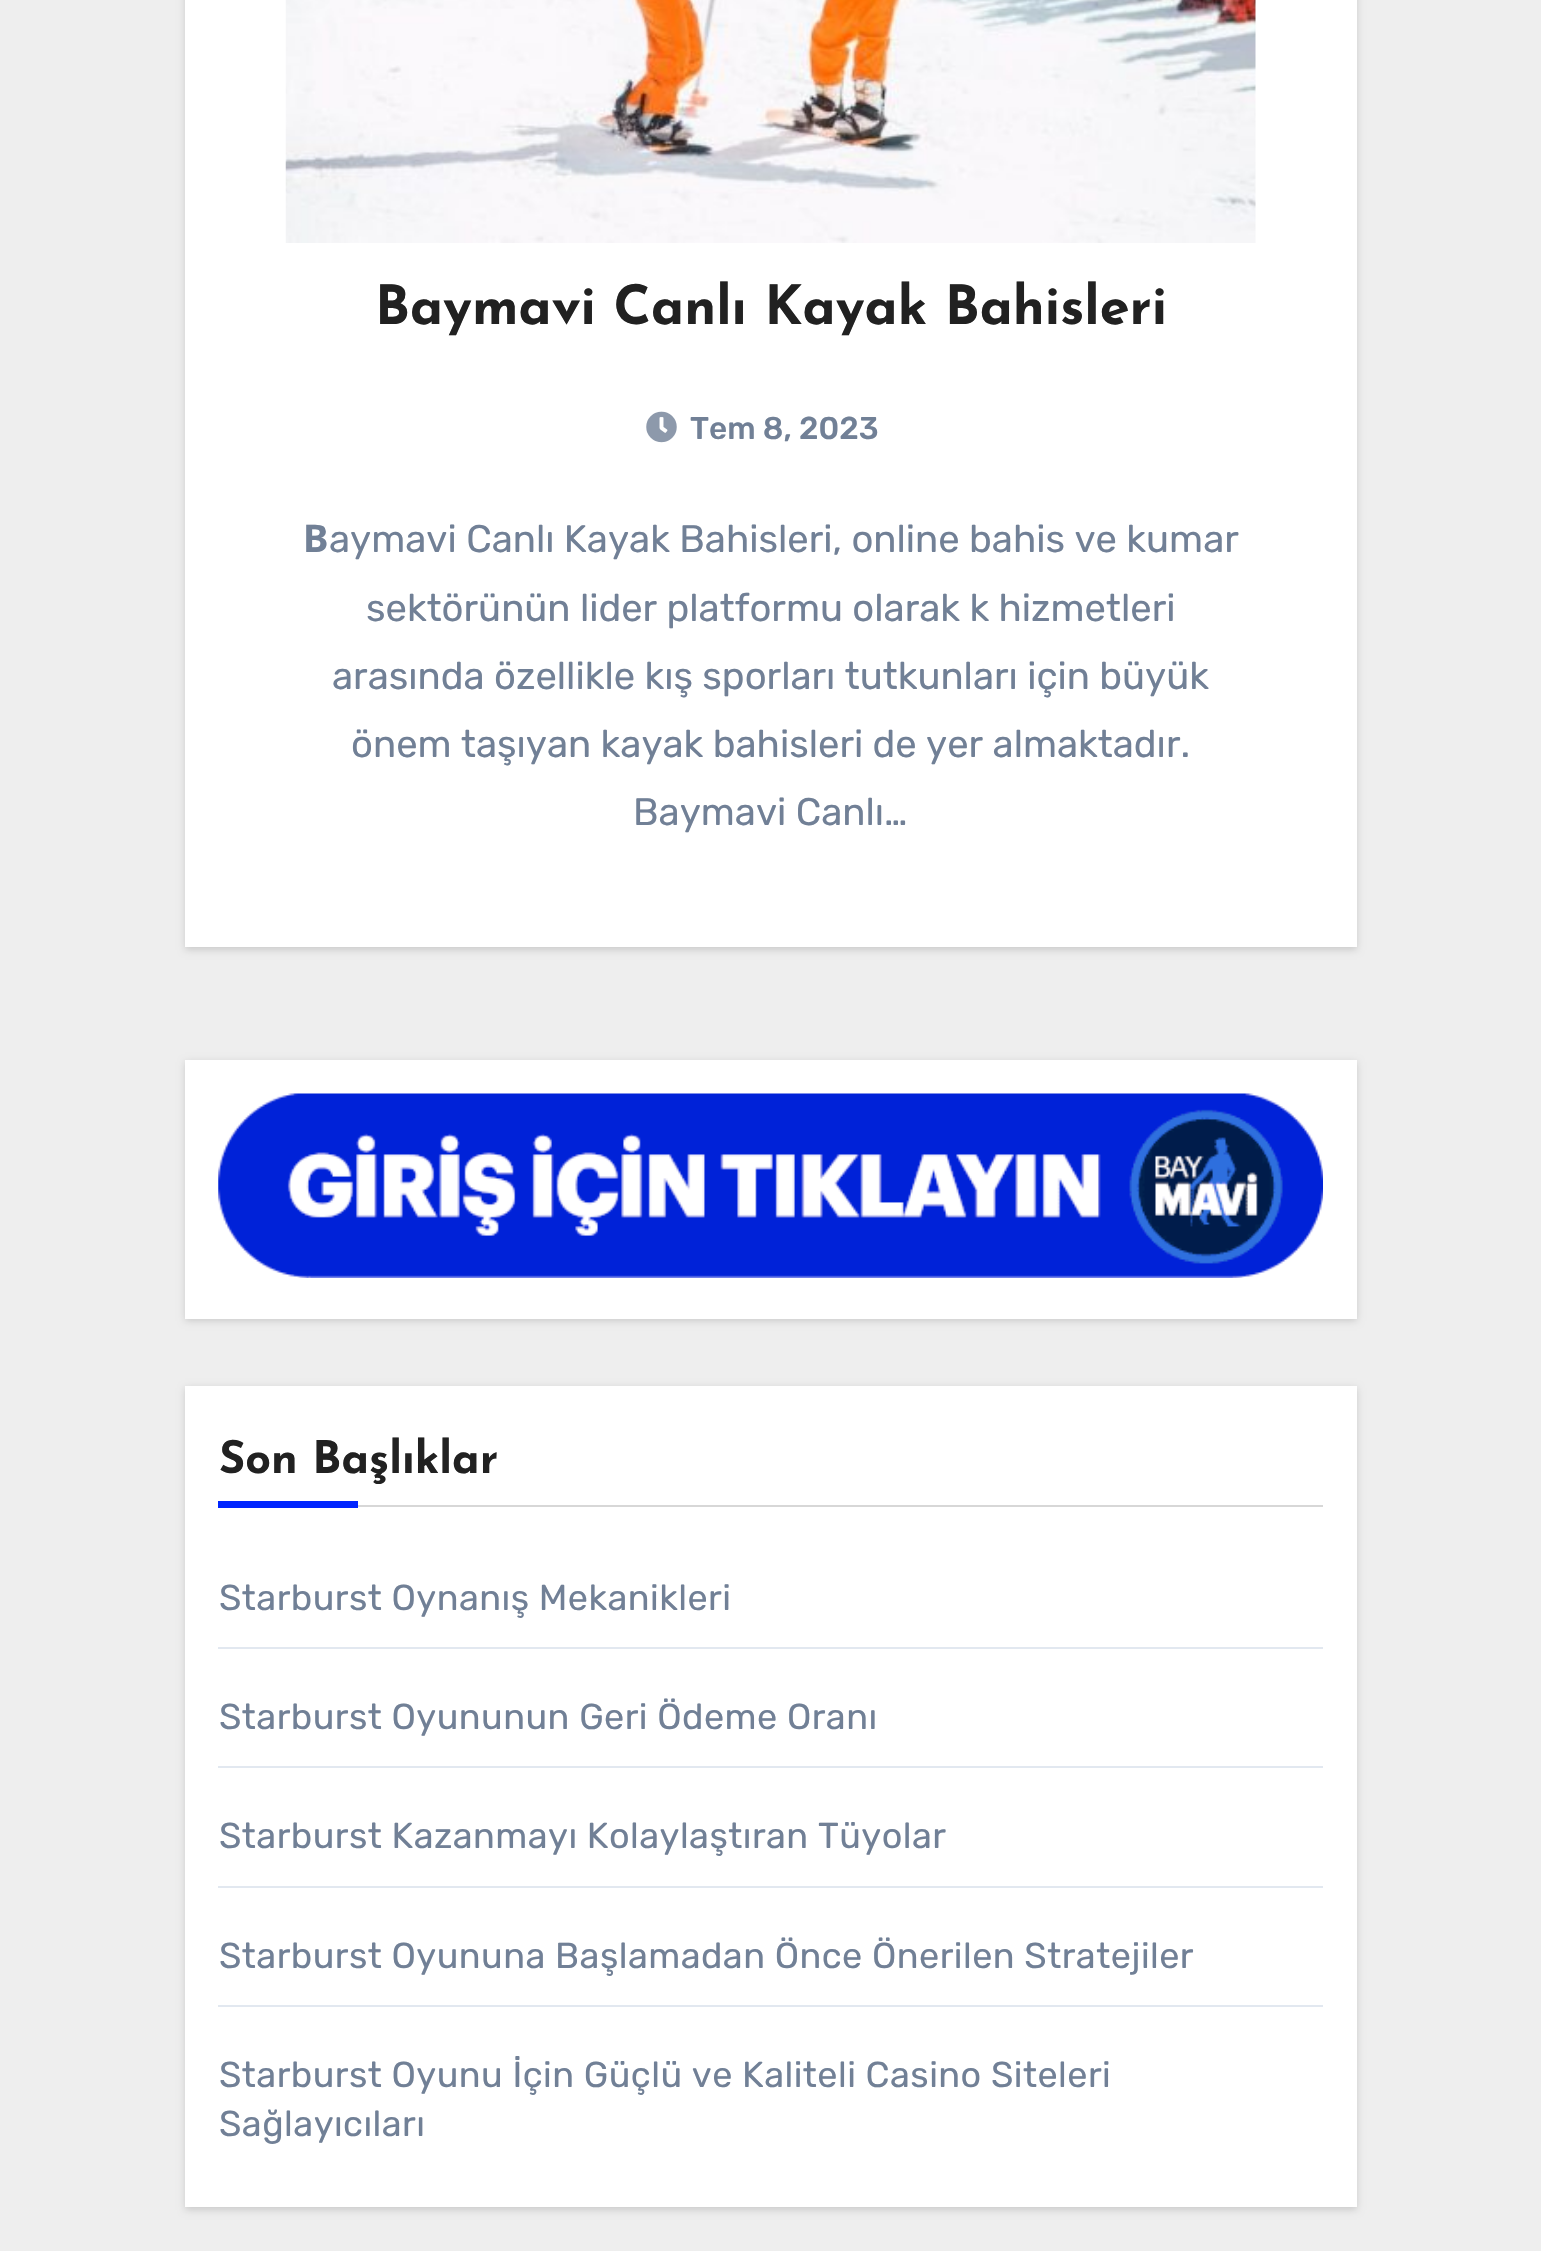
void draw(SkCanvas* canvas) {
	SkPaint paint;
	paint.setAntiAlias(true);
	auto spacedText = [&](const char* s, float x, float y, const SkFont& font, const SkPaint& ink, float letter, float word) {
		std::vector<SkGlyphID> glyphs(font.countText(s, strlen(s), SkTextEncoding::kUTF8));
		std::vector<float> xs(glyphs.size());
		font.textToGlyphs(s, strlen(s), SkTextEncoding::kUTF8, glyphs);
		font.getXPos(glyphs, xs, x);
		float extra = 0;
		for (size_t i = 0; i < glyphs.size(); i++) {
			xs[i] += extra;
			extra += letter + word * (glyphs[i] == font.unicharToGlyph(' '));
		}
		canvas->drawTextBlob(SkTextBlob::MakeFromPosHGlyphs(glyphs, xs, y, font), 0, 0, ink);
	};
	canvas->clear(0xffeeeeee);
	paint.setColor(0x26000000);
	paint.setMaskFilter(SkMaskFilter::MakeBlur(kNormal_SkBlurStyle, 3.5));
	canvas->drawRect(SkRect::MakeXYWH(185, -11, 1172, 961), paint);
	paint.setMaskFilter(nullptr);
	paint.setColor(0xffffffff);
	canvas->drawRect(SkRect::MakeXYWH(185, 0, 1172, 947), paint);
	canvas->drawImageRect(SkImages::DeferredFromEncodedData(SkData::MakeFromFileName("img1.png")), SkRect::MakeXYWH(285, 0, 971, 243), SkSamplingOptions());
	SkFont f1(fontMgr->matchFamilyStyle("Josefin Sans", SkFontStyle::Bold()), 54);
	f1.setSubpixel(true);
	paint.setColor(0xff212121);
	canvas->drawString("Baymavi Canlı Kayak Bahisleri", 375, 324, f1, paint);
	canvas->drawImageRect(SkImages::DeferredFromEncodedData(SkData::MakeFromFileName("img2.png")), SkRect::MakeXYWH(646, 411, 31, 32), SkSamplingOptions());
	SkFont f2(fontMgr->matchFamilyStyle("Rubik", SkFontStyle(500, SkFontStyle::kNormal_Width, SkFontStyle::kUpright_Slant)), 31.5);
	f2.setSubpixel(true);
	paint.setColor(0xff718096);
	canvas->drawString("Tem 8, 2023", 690, 439, f2, paint);
	SkFont f3(fontMgr->matchFamilyStyle("Noto Sans", SkFontStyle::Bold()), 38.25);
	f3.setSubpixel(true);
	canvas->drawString("B", 303, 552, f3, paint);
	SkFont f4(fontMgr->matchFamilyStyle("Rubik", SkFontStyle(300, SkFontStyle::kNormal_Width, SkFontStyle::kUpright_Slant)), 38.25);
	f4.setSubpixel(true);
	canvas->drawString("aymavi Canlı Kayak Bahisleri, online bahis ve kumar", 329, 552, f4, paint);
	canvas->drawString("sektörünün lider platformu olarak k hizmetleri", 366, 621, f4, paint);
	canvas->drawString("arasında özellikle kış sporları tutkunları için büyük", 332, 689, f4, paint);
	canvas->drawString("önem taşıyan kayak bahisleri de yer almaktadır.", 351, 757, f4, paint);
	canvas->drawString("Baymavi Canlı…", 633, 825, f4, paint);
	paint.setColor(0x26000000);
	paint.setMaskFilter(SkMaskFilter::MakeBlur(kNormal_SkBlurStyle, 3.5));
	canvas->drawRect(SkRect::MakeXYWH(185, 1062, 1172, 259), paint);
	paint.setMaskFilter(nullptr);
	paint.setColor(0xffffffff);
	canvas->drawRect(SkRect::MakeXYWH(185, 1060, 1172, 259), paint);
	canvas->drawImageRect(SkImages::DeferredFromEncodedData(SkData::MakeFromFileName("img3.png")), SkRect::MakeXYWH(218, 1093, 1105, 185), SkSamplingOptions());
	paint.setColor(0x26000000);
	paint.setMaskFilter(SkMaskFilter::MakeBlur(kNormal_SkBlurStyle, 3.5));
	canvas->drawRect(SkRect::MakeXYWH(185, 1388, 1172, 822), paint);
	paint.setMaskFilter(nullptr);
	paint.setColor(0xffffffff);
	canvas->drawRect(SkRect::MakeXYWH(185, 1386, 1172, 821), paint);
	paint.setColor(0xffd7d7d7);
	canvas->drawRect(SkRect::MakeXYWH(358, 1505, 965, 2), paint);
	SkFont f5(fontMgr->matchFamilyStyle("Josefin Sans", SkFontStyle::Bold()), 45);
	f5.setSubpixel(true);
	paint.setColor(0xff212121);
	canvas->drawString("Son Başlıklar", 219, 1473, f5, paint);
	paint.setColor(0xff0025ff);
	canvas->drawRect(SkRect::MakeXYWH(218, 1501, 140, 7), paint);
	paint.setColor(0xffe2e8f0);
	canvas->drawRect(SkRect::MakeXYWH(218, 1647, 1105, 2), paint);
	SkFont f6(fontMgr->matchFamilyStyle("Rubik", SkFontStyle(300, SkFontStyle::kNormal_Width, SkFontStyle::kUpright_Slant)), 36);
	f6.setSubpixel(true);
	paint.setColor(0xff718096);
	spacedText("Starburst Oynanış Mekanikleri", 219, 1610, f6, paint, 0.45, 0);
	paint.setColor(0xffe2e8f0);
	canvas->drawRect(SkRect::MakeXYWH(218, 1766, 1105, 2), paint);
	paint.setColor(0xff718096);
	spacedText("Starburst Oyununun Geri Ödeme Oranı", 219, 1729, f6, paint, 0.45, 0);
	paint.setColor(0xffe2e8f0);
	canvas->drawRect(SkRect::MakeXYWH(218, 1886, 1105, 2), paint);
	paint.setColor(0xff718096);
	spacedText("Starburst Kazanmayı Kolaylaştıran Tüyolar", 219, 1848, f6, paint, 0.45, 0);
	paint.setColor(0xffe2e8f0);
	canvas->drawRect(SkRect::MakeXYWH(218, 2005, 1105, 2), paint);
	paint.setColor(0xff718096);
	spacedText("Starburst Oyununa Başlamadan Önce Önerilen Stratejiler", 219, 1968, f6, paint, 0.45, 0);
	spacedText("Starburst Oyunu İçin Güçlü ve Kaliteli Casino Siteleri", 219, 2087, f6, paint, 0.45, 0);
	spacedText("Sağlayıcıları", 219, 2136, f6, paint, 0.45, 0);
}
